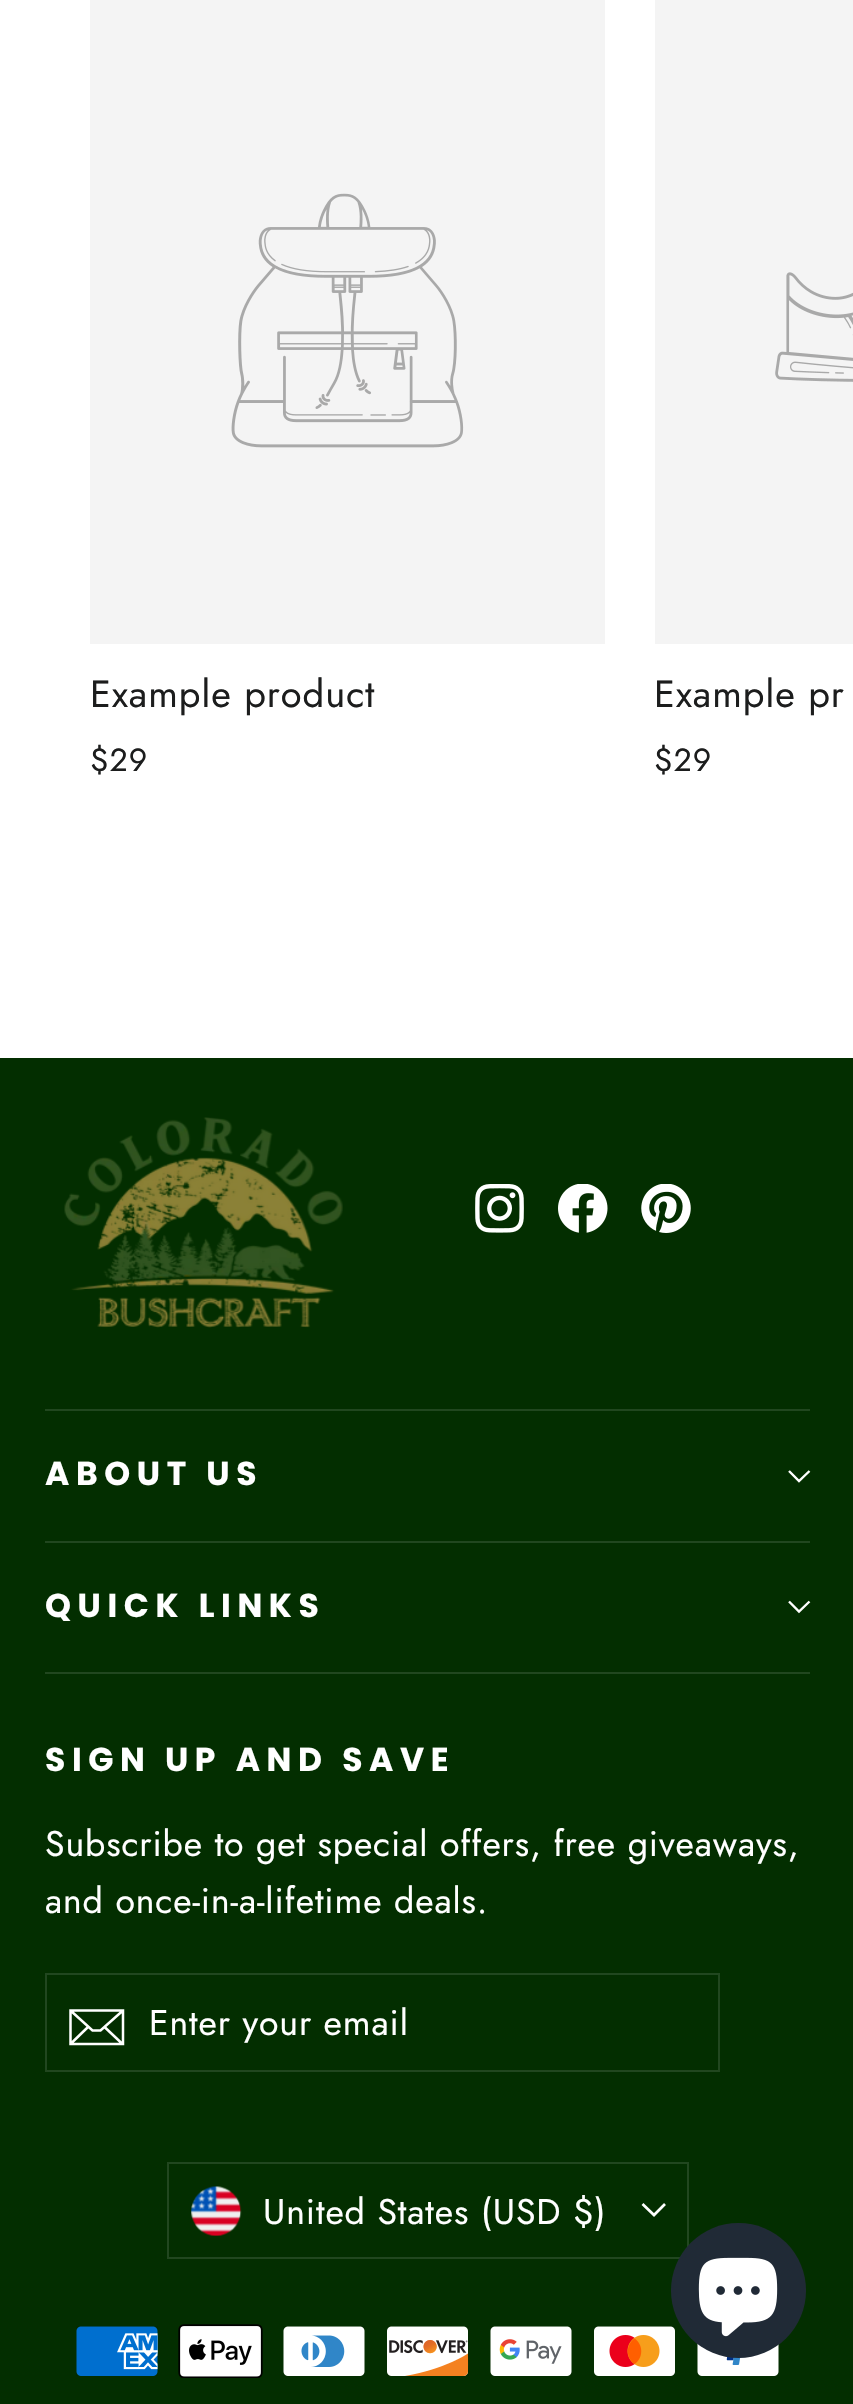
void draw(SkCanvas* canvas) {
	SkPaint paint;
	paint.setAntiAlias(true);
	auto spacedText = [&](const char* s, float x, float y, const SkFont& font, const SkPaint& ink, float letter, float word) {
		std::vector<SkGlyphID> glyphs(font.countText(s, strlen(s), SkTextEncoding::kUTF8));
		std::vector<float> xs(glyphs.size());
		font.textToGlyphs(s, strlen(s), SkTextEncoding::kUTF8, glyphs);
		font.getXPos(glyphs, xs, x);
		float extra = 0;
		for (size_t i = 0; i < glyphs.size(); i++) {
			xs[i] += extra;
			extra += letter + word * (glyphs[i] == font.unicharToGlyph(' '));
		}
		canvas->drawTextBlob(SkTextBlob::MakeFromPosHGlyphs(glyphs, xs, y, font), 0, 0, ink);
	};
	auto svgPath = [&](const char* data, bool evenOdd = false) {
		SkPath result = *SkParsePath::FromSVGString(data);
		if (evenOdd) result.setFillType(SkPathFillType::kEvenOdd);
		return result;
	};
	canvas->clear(0xffffffff);
	paint.setColor(0xfff4f4f4);
	canvas->drawRect(SkRect::MakeXYWH(90, 0, 515, 644), paint);
	canvas->drawImageRect(SkImages::DeferredFromEncodedData(SkData::MakeFromFileName("img1.png")), SkRect::MakeXYWH(231, 193, 233, 255), SkSamplingOptions());
	SkFont f1(fontMgr->matchFamilyStyle("Jost", SkFontStyle::Normal()), 38);
	f1.setSubpixel(true);
	paint.setColor(0xff1c1d1d);
	spacedText("Example product", 90, 707, f1, paint, 1, 0);
	SkFont f2(fontMgr->matchFamilyStyle("Jost", SkFontStyle::Normal()), 32);
	f2.setSubpixel(true);
	spacedText("$29", 90, 771, f2, paint, 1, 0);
	paint.setColor(0xfff4f4f4);
	canvas->drawRect(SkRect::MakeXYWH(655, 0, 198, 644), paint);
	canvas->drawImageRect(SkImages::DeferredFromEncodedData(SkData::MakeFromFileName("img2.png")), SkRect::MakeXYWH(775, 272, 78, 110), SkSamplingOptions());
	paint.setColor(0xff1c1d1d);
	spacedText("Example pr", 654, 707, f1, paint, 1, 0);
	spacedText("$29", 654, 771, f2, paint, 1, 0);
	paint.setColor(0xff032e00);
	canvas->drawRect(SkRect::MakeXYWH(0, 1058, 853, 1346), paint);
	canvas->drawImageRect(SkImages::DeferredFromEncodedData(SkData::MakeFromFileName("img3.png")), SkRect::MakeXYWH(64, 1117, 279, 211), SkSamplingOptions());
	canvas->drawImageRect(SkImages::DeferredFromEncodedData(SkData::MakeFromFileName("img4.png")), SkRect::MakeXYWH(475, 1184, 49, 49), SkSamplingOptions());
	canvas->drawImageRect(SkImages::DeferredFromEncodedData(SkData::MakeFromFileName("img5.png")), SkRect::MakeXYWH(558, 1184, 50, 49), SkSamplingOptions());
	canvas->drawImageRect(SkImages::DeferredFromEncodedData(SkData::MakeFromFileName("img6.png")), SkRect::MakeXYWH(641, 1184, 50, 49), SkSamplingOptions());
	paint.setColor(0xff21471f);
	canvas->drawRect(SkRect::MakeXYWH(45, 1409, 765, 2), paint);
	SkFont f3(fontMgr->matchFamilyStyle("Poppins", SkFontStyle::Bold()), 33);
	f3.setSubpixel(true);
	paint.setColor(0xffffffff);
	spacedText("ABOUT US", 45, 1485, f3, paint, 6.6, 0);
	paint.setStroke(true);
	paint.setStrokeWidth(2.4);
	canvas->drawPath(svgPath("M789 1471L799 1481L809.5 1471"), paint);
	paint.setStroke(false);
	paint.setColor(0xff21471f);
	canvas->drawRect(SkRect::MakeXYWH(45, 1541, 765, 2), paint);
	paint.setColor(0xffffffff);
	spacedText("QUICK LINKS", 45, 1617, f3, paint, 6.6, 0);
	paint.setStroke(true);
	canvas->drawPath(svgPath("M789 1601.5L799 1611.5L809.5 1601.5"), paint);
	paint.setStroke(false);
	paint.setColor(0xff21471f);
	canvas->drawRect(SkRect::MakeXYWH(45, 1672, 765, 2), paint);
	paint.setColor(0xffffffff);
	spacedText("SIGN UP AND SAVE", 45, 1771, f3, paint, 6.6, 0);
	SkFont f4(fontMgr->matchFamilyStyle("Jost", SkFontStyle::Normal()), 35.6);
	f4.setSubpixel(true);
	spacedText("Subscribe to get special offers, free giveaways,", 45, 1856, f4, paint, 0.9, 0);
	spacedText("and once-in-a-lifetime deals.", 45, 1913, f4, paint, 0.9, 0);
	paint.setStroke(true);
	paint.setStrokeWidth(2);
	paint.setColor(0xff21471f);
	canvas->drawRect(SkRect::MakeXYWH(46, 1974, 673, 97), paint);
	paint.setStrokeWidth(2.5);
	paint.setColor(0xffffffff);
	canvas->drawPath(svgPath("M123 2044H70.5V2010.5H123ZM70.5 2010.5L92.5 2030.5H100.5L123 2010.5M88 2027L71 2043.5M122.5 2044L104.5 2027"), paint);
	paint.setStroke(false);
	spacedText("Enter your email", 149, 2035, f4, paint, 0.9, 0);
	paint.setStroke(true);
	paint.setStrokeWidth(2);
	paint.setColor(0xff21471f);
	canvas->drawRect(SkRect::MakeXYWH(168, 2163, 520, 95), paint);
	canvas->drawImageRect(SkImages::DeferredFromEncodedData(SkData::MakeFromFileName("img7.png")), SkRect::MakeXYWH(191, 2186, 51, 50), SkSamplingOptions());
	paint.setStroke(false);
	paint.setColor(0xffffffff);
	spacedText("United States (USD $)", 263, 2224, f4, paint, 0.9, 0);
	paint.setStroke(true);
	paint.setStrokeWidth(2.7);
	canvas->drawPath(svgPath("M642.5 2204L654 2215L665 2204"), paint);
	canvas->drawImageRect(SkImages::DeferredFromEncodedData(SkData::MakeFromFileName("img8.png")), SkRect::MakeXYWH(76, 2326, 82, 50), SkSamplingOptions());
	canvas->drawImageRect(SkImages::DeferredFromEncodedData(SkData::MakeFromFileName("img9.png")), SkRect::MakeXYWH(178, 2324, 85, 54), SkSamplingOptions());
	canvas->drawImageRect(SkImages::DeferredFromEncodedData(SkData::MakeFromFileName("img10.png")), SkRect::MakeXYWH(283, 2326, 82, 50), SkSamplingOptions());
	canvas->drawImageRect(SkImages::DeferredFromEncodedData(SkData::MakeFromFileName("img11.png")), SkRect::MakeXYWH(387, 2326, 82, 50), SkSamplingOptions());
	canvas->drawImageRect(SkImages::DeferredFromEncodedData(SkData::MakeFromFileName("img12.png")), SkRect::MakeXYWH(490, 2326, 82, 50), SkSamplingOptions());
	canvas->drawImageRect(SkImages::DeferredFromEncodedData(SkData::MakeFromFileName("img13.png")), SkRect::MakeXYWH(594, 2326, 81, 50), SkSamplingOptions());
	canvas->drawImageRect(SkImages::DeferredFromEncodedData(SkData::MakeFromFileName("img14.png")), SkRect::MakeXYWH(697, 2343, 82, 33), SkSamplingOptions());
	paint.setStroke(false);
	paint.setColor(0xff202a36);
	canvas->drawCircle(738.5, 2290.5, 67.5, paint);
	canvas->drawImageRect(SkImages::DeferredFromEncodedData(SkData::MakeFromFileName("img15.png")), SkRect::MakeXYWH(698, 2257, 80, 80), SkSamplingOptions());
}
